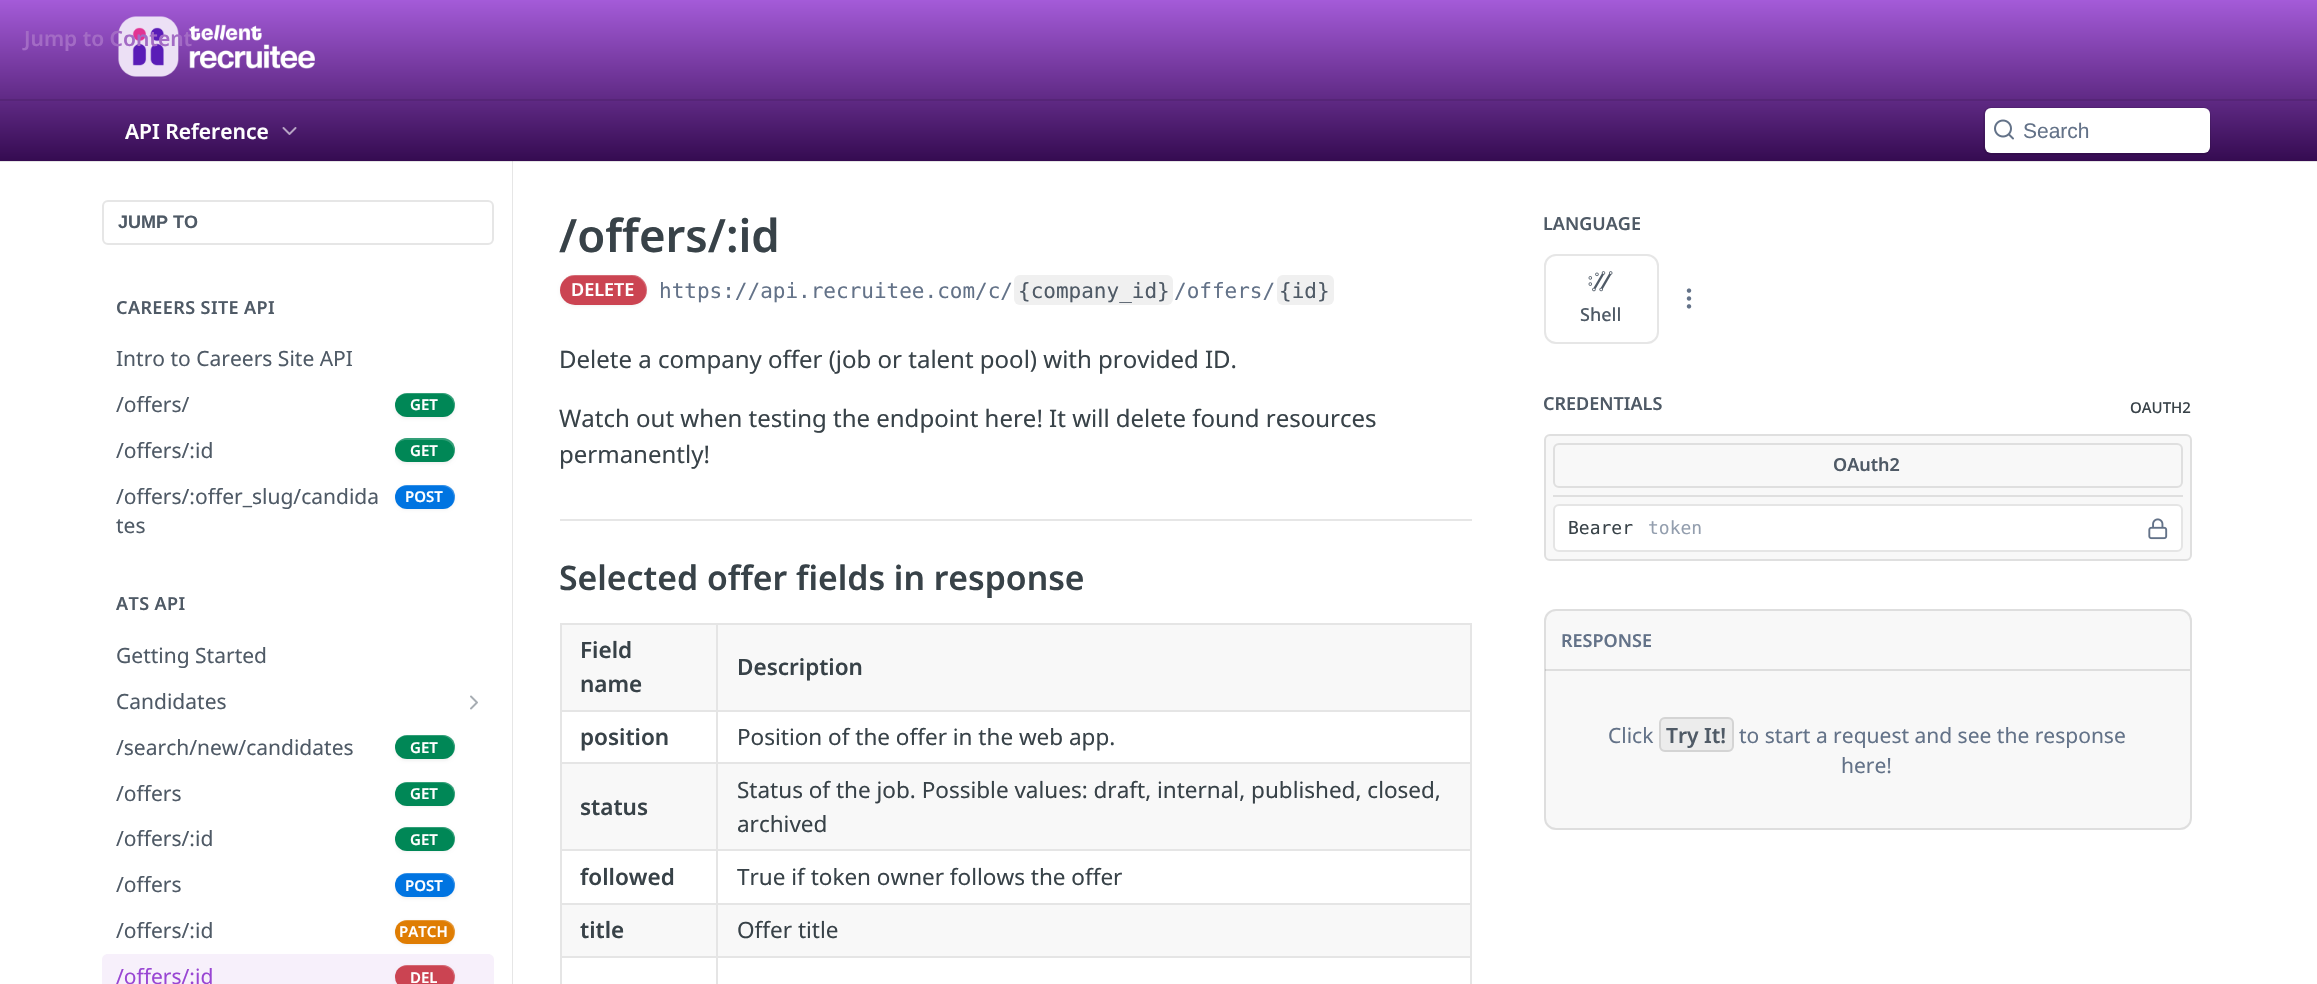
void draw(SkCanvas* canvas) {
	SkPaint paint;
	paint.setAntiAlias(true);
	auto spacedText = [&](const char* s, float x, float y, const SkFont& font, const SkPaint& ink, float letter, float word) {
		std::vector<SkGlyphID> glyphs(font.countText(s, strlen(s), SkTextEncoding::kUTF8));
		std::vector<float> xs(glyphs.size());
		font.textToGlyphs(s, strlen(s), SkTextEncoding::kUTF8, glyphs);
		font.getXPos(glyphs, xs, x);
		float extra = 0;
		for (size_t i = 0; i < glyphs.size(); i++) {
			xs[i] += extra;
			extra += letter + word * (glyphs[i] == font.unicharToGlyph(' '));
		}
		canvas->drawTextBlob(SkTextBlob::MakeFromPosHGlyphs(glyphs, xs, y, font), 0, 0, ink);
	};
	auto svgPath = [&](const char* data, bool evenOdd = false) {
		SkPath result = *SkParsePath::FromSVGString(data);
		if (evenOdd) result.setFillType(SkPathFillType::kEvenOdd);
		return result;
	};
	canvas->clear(0xffffffff);
	paint.setColor(0xffe6e6e6);
	canvas->drawPath(svgPath("M81 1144V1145H513V161H512V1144Z"), paint);
	paint.setColor(0x1a000000);
	canvas->drawPath(svgPath("M0 160V162H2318V2V160Z"), paint);
	{
		const SkColor colors[] = {0xffa45bd8, 0xff350b51};
		const float stops[] = {0, 1};
		const SkPoint ends[] = {{1159, 0}, {1159, 161}};
		paint.setShader(SkGradientShader::MakeLinear(ends, colors, stops, 2, SkTileMode::kClamp));
		paint.setAlpha(255);
	}
	canvas->drawRect(SkRect::MakeXYWH(0, 0, 2317, 161), paint);
	paint.setShader(nullptr);
	paint.setColor(0xff562577);
	canvas->drawRect(SkRect::MakeXYWH(0, 99, 2317, 2), paint);
	canvas->drawImageRect(SkImages::DeferredFromEncodedData(SkData::MakeFromFileName("img1.png")), SkRect::MakeXYWH(118, 16, 197, 61), SkSamplingOptions());
	SkFont f1(fontMgr->matchFamilyStyle("Noto Sans", SkFontStyle(600, SkFontStyle::kNormal_Width, SkFontStyle::kUpright_Slant)), 21);
	f1.setSubpixel(true);
	paint.setColor(0xffa36bc5);
	canvas->drawString("Jump to Content", 24, 46, f1, paint);
	paint.setColor(0xffffffff);
	canvas->drawString("API Reference", 125, 139, f1, paint);
	canvas->drawImageRect(SkImages::DeferredFromEncodedData(SkData::MakeFromFileName("img2.png")), SkRect::MakeXYWH(282, 127, 15, 8), SkSamplingOptions());
	paint.setStroke(true);
	paint.setStrokeWidth(2);
	paint.setColor(0x1a000000);
	canvas->drawRoundRect(SkRect::MakeXYWH(1984, 108, 226, 46), 7, 7, paint);
	paint.setStroke(false);
	paint.setColor(0xffffffff);
	canvas->drawRoundRect(SkRect::MakeXYWH(1985, 108, 225, 45), 6, 6, paint);
	canvas->drawImageRect(SkImages::DeferredFromEncodedData(SkData::MakeFromFileName("img3.png")), SkRect::MakeXYWH(1994, 119, 20, 21), SkSamplingOptions());
	SkFont f2(fontMgr->matchFamilyStyle("Liberation Sans", SkFontStyle::Normal()), 21);
	f2.setSubpixel(true);
	paint.setColor(0xff637288);
	canvas->drawString("Search", 2023, 138, f2, paint);
	paint.setStroke(true);
	paint.setColor(0xffe6e6e6);
	canvas->drawRoundRect(SkRect::MakeXYWH(103, 201, 390, 43), 5, 5, paint);
	SkFont f3(fontMgr->matchFamilyStyle("Liberation Sans", SkFontStyle::Bold()), 18);
	f3.setSubpixel(true);
	paint.setStroke(false);
	paint.setColor(0xff4f5a66);
	canvas->drawString("JUMP TO", 118, 228, f3, paint);
	SkFont f4(fontMgr->matchFamilyStyle("Noto Sans", SkFontStyle(600, SkFontStyle::kNormal_Width, SkFontStyle::kUpright_Slant)), 18);
	f4.setSubpixel(true);
	spacedText("CAREERS SITE API", 116, 314, f4, paint, 0.4, 0);
	SkFont f5(fontMgr->matchFamilyStyle("Noto Sans", SkFontStyle::Normal()), 21);
	f5.setSubpixel(true);
	canvas->drawString("Intro to Careers Site API", 116, 366, f5, paint);
	canvas->drawString("/offers/", 116, 412, f5, paint);
	paint.setColor(0x0d000000);
	paint.setMaskFilter(SkMaskFilter::MakeBlur(kNormal_SkBlurStyle, 1.5));
	canvas->drawRoundRect(SkRect::MakeXYWH(395, 395, 60, 24), 12, 12, paint);
	paint.setMaskFilter(nullptr);
	paint.setColor(0xff008756);
	canvas->drawRoundRect(SkRect::MakeXYWH(395, 393, 60, 24), 12, 12, paint);
	paint.setColor(0x33ffffff);
	canvas->drawPath(svgPath("M406 394H442C449 394 454 400 454 406C454 409 453 411 452 413C454 411 455 408 455 405C455 398 450 393 443 393H407C402 393 399 395 397 399C399 396 402 394 406 394Z"), paint);
	SkFont f6(fontMgr->matchFamilyStyle("Noto Sans", SkFontStyle(600, SkFontStyle::kNormal_Width, SkFontStyle::kUpright_Slant)), 15);
	f6.setSubpixel(true);
	paint.setColor(0xffffffff);
	canvas->drawString("GET", 410, 410, f6, paint);
	paint.setColor(0xff4f5a66);
	canvas->drawString("/offers/:id", 116, 458, f5, paint);
	paint.setColor(0x0d000000);
	paint.setMaskFilter(SkMaskFilter::MakeBlur(kNormal_SkBlurStyle, 1.5));
	canvas->drawRoundRect(SkRect::MakeXYWH(395, 440, 60, 24), 12, 12, paint);
	paint.setMaskFilter(nullptr);
	paint.setColor(0xff008756);
	canvas->drawRoundRect(SkRect::MakeXYWH(395, 438, 60, 24), 12, 12, paint);
	paint.setColor(0x33ffffff);
	canvas->drawPath(svgPath("M406 440H442C449 440 454 445 454 452L453 457C454 455 455 452 455 450C455 443 450 438 443 438H407C402 438 397 441 396 446C398 442 402 440 406 440Z"), paint);
	paint.setColor(0xffffffff);
	canvas->drawString("GET", 410, 456, f6, paint);
	paint.setColor(0xff4f5a66);
	canvas->drawString("/offers/:offer_slug/candida", 116, 504, f5, paint);
	canvas->drawString("tes", 116, 533, f5, paint);
	paint.setColor(0x0d000000);
	paint.setMaskFilter(SkMaskFilter::MakeBlur(kNormal_SkBlurStyle, 1.5));
	canvas->drawRoundRect(SkRect::MakeXYWH(395, 486, 60, 24), 12, 12, paint);
	paint.setMaskFilter(nullptr);
	paint.setColor(0xff0074e1);
	canvas->drawRoundRect(SkRect::MakeXYWH(395, 485, 60, 24), 12, 12, paint);
	paint.setColor(0x33ffffff);
	canvas->drawPath(svgPath("M406 486H442C449 486 454 491 454 498C454 501 453 503 452 505C454 503 455 500 455 497C455 490 450 485 443 485H407C403 485 400 487 398 489C400 487 403 486 406 486Z"), paint);
	paint.setColor(0xffffffff);
	canvas->drawString("POST", 405, 502, f6, paint);
	paint.setColor(0xff4f5a66);
	spacedText("ATS API", 116, 610, f4, paint, 0.4, 0);
	canvas->drawString("Getting Started", 116, 663, f5, paint);
	canvas->drawString("Candidates", 116, 709, f5, paint);
	canvas->drawImageRect(SkImages::DeferredFromEncodedData(SkData::MakeFromFileName("img4.png")), SkRect::MakeXYWH(470, 695, 8, 15), SkSamplingOptions());
	canvas->drawString("/search/new/candidates", 116, 755, f5, paint);
	paint.setColor(0x0d000000);
	paint.setMaskFilter(SkMaskFilter::MakeBlur(kNormal_SkBlurStyle, 1.5));
	canvas->drawRoundRect(SkRect::MakeXYWH(395, 737, 60, 24), 12, 12, paint);
	paint.setMaskFilter(nullptr);
	paint.setColor(0xff008756);
	canvas->drawRoundRect(SkRect::MakeXYWH(395, 735, 60, 24), 12, 12, paint);
	paint.setColor(0x33ffffff);
	canvas->drawPath(svgPath("M406 736H442C449 736 454 742 454 748C454 751 453 753 452 755C454 753 455 750 455 747C455 740 450 735 443 735H407C402 735 399 737 397 741C399 738 402 736 406 736Z"), paint);
	paint.setColor(0xffffffff);
	canvas->drawString("GET", 410, 753, f6, paint);
	paint.setColor(0xff4f5a66);
	canvas->drawString("/offers", 116, 801, f5, paint);
	paint.setColor(0x0d000000);
	paint.setMaskFilter(SkMaskFilter::MakeBlur(kNormal_SkBlurStyle, 1.5));
	canvas->drawRoundRect(SkRect::MakeXYWH(395, 783, 60, 24), 12, 12, paint);
	paint.setMaskFilter(nullptr);
	paint.setColor(0xff008756);
	canvas->drawRoundRect(SkRect::MakeXYWH(395, 782, 60, 24), 12, 12, paint);
	paint.setColor(0x33ffffff);
	canvas->drawPath(svgPath("M406 783H442C449 783 454 788 454 795C454 798 453 800 452 802C454 800 455 797 455 794C455 787 450 782 443 782H407C403 782 400 784 398 786C400 784 403 783 406 783Z"), paint);
	paint.setColor(0xffffffff);
	canvas->drawString("GET", 410, 799, f6, paint);
	paint.setColor(0xff4f5a66);
	canvas->drawString("/offers/:id", 116, 846, f5, paint);
	paint.setColor(0x0d000000);
	paint.setMaskFilter(SkMaskFilter::MakeBlur(kNormal_SkBlurStyle, 1.5));
	canvas->drawRoundRect(SkRect::MakeXYWH(395, 828, 60, 24), 12, 12, paint);
	paint.setMaskFilter(nullptr);
	paint.setColor(0xff008756);
	canvas->drawRoundRect(SkRect::MakeXYWH(395, 827, 60, 24), 12, 12, paint);
	paint.setColor(0x33ffffff);
	canvas->drawPath(svgPath("M406 828H442C449 828 454 833 454 840C454 843 453 845 452 847C454 845 455 842 455 839C455 832 450 827 443 827H407C403 827 400 829 398 831C400 829 403 828 406 828Z"), paint);
	paint.setColor(0xffffffff);
	canvas->drawString("GET", 410, 845, f6, paint);
	paint.setColor(0xff4f5a66);
	canvas->drawString("/offers", 116, 892, f5, paint);
	paint.setColor(0x0d000000);
	paint.setMaskFilter(SkMaskFilter::MakeBlur(kNormal_SkBlurStyle, 1.5));
	canvas->drawRoundRect(SkRect::MakeXYWH(395, 875, 60, 24), 12, 12, paint);
	paint.setMaskFilter(nullptr);
	paint.setColor(0xff0074e1);
	canvas->drawRoundRect(SkRect::MakeXYWH(395, 873, 60, 24), 12, 12, paint);
	paint.setColor(0x33ffffff);
	canvas->drawPath(svgPath("M406 874H442C449 874 454 880 454 886C454 889 453 891 452 893C454 891 455 888 455 885C455 878 450 873 443 873H407C402 873 399 875 397 879C399 876 402 874 406 874Z"), paint);
	paint.setColor(0xffffffff);
	canvas->drawString("POST", 405, 891, f6, paint);
	paint.setColor(0xff4f5a66);
	canvas->drawString("/offers/:id", 116, 938, f5, paint);
	paint.setColor(0x0d000000);
	paint.setMaskFilter(SkMaskFilter::MakeBlur(kNormal_SkBlurStyle, 1.5));
	canvas->drawRoundRect(SkRect::MakeXYWH(395, 921, 60, 24), 12, 12, paint);
	paint.setMaskFilter(nullptr);
	paint.setColor(0xffdf7d03);
	canvas->drawRoundRect(SkRect::MakeXYWH(395, 920, 60, 24), 12, 12, paint);
	paint.setColor(0x33ffffff);
	canvas->drawPath(svgPath("M406 921H442C449 921 454 926 454 933C454 936 453 938 452 940C454 938 455 935 455 932C455 925 450 920 443 920H407C403 920 400 922 398 924C400 922 403 921 406 921Z"), paint);
	paint.setColor(0xffffffff);
	canvas->drawString("PATCH", 399, 937, f6, paint);
	paint.setColor(0xfff7f0fb);
	canvas->drawPath(svgPath("M108 954H488C491.5 954 494 956.5 494 960V984H102V960C102 956.5 104.5 954 108 954Z"), paint);
	paint.setColor(0xff9946d3);
	canvas->drawString("/offers/:id", 116, 984, f5, paint);
	paint.setColor(0x0d000000);
	paint.setMaskFilter(SkMaskFilter::MakeBlur(kNormal_SkBlurStyle, 1.5));
	canvas->drawRoundRect(SkRect::MakeXYWH(395, 966, 60, 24), 12, 12, paint);
	paint.setMaskFilter(nullptr);
	paint.setColor(0xffcb4452);
	canvas->drawRoundRect(SkRect::MakeXYWH(395, 965, 60, 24), 12, 12, paint);
	paint.setColor(0x33ffffff);
	canvas->drawPath(svgPath("M406 966H442C449 966 454 971 454 978C454 981 453 983 452 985C454 983 455 980 455 977C455 970 450 965 443 965H407C403 965 400 967 398 969C400 967 403 966 406 966Z"), paint);
	paint.setColor(0xffffffff);
	canvas->drawString("DEL", 410, 983, f6, paint);
	paint.setColor(0xffe6e6e6);
	canvas->drawRect(SkRect::MakeXYWH(560, 519, 912, 2), paint);
	SkFont f7(fontMgr->matchFamilyStyle("Noto Sans", SkFontStyle(600, SkFontStyle::kNormal_Width, SkFontStyle::kUpright_Slant)), 45.5);
	f7.setSubpixel(true);
	paint.setColor(0xff384248);
	canvas->drawString("/offers/:id", 559, 252, f7, paint);
	paint.setColor(0x0d000000);
	paint.setMaskFilter(SkMaskFilter::MakeBlur(kNormal_SkBlurStyle, 1.5));
	canvas->drawRoundRect(SkRect::MakeXYWH(560, 276, 87, 30), 15, 15, paint);
	paint.setMaskFilter(nullptr);
	paint.setColor(0xffcb4452);
	canvas->drawRoundRect(SkRect::MakeXYWH(560, 275, 87, 30), 15, 15, paint);
	paint.setColor(0x33ffffff);
	canvas->drawPath(svgPath("M574 276H632C640 276 646 283 646 291C646 294 645 297 643 300C646 296 648 292 647 287C644 274 633 275 622 275H572C565 277 560 283 560 290C560 283 566 276 574 276Z"), paint);
	paint.setColor(0xffffffff);
	canvas->drawString("DELETE", 571, 296, f4, paint);
	SkFont f8(fontMgr->matchFamilyStyle("DejaVu Sans Mono", SkFontStyle::Normal()), 21);
	f8.setSubpixel(true);
	paint.setColor(0xff637288);
	canvas->drawString("https://api.recruitee.com/c/", 659, 298, f8, paint);
	paint.setColor(0xfff0f0f0);
	canvas->drawRoundRect(SkRect::MakeXYWH(1014, 275, 159, 30), 6, 6, paint);
	paint.setColor(0xff4f5a66);
	canvas->drawString("{company_id}", 1018, 298, f8, paint);
	paint.setColor(0xff637288);
	canvas->drawString("/offers/", 1174, 298, f8, paint);
	paint.setColor(0xfff0f0f0);
	canvas->drawRoundRect(SkRect::MakeXYWH(1277, 275, 57, 30), 6, 6, paint);
	paint.setColor(0xff4f5a66);
	canvas->drawString("{id}", 1279, 298, f8, paint);
	SkFont f9(fontMgr->matchFamilyStyle("Noto Sans", SkFontStyle::Normal()), 24);
	f9.setSubpixel(true);
	paint.setColor(0xff384248);
	canvas->drawString("Delete a company offer (job or talent pool) with provided ID.", 559, 368, f9, paint);
	canvas->drawString("Watch out when testing the endpoint here! It will delete found resources", 559, 427, f9, paint);
	canvas->drawString("permanently!", 559, 463, f9, paint);
	SkFont f10(fontMgr->matchFamilyStyle("Noto Sans", SkFontStyle(600, SkFontStyle::kNormal_Width, SkFontStyle::kUpright_Slant)), 33.75);
	f10.setSubpixel(true);
	canvas->drawString("Selected offer fields in response", 559, 590, f10, paint);
	paint.setColor(0xffe5e5e5);
	canvas->drawRect(SkRect::MakeXYWH(560, 623, 912, 2), paint);
	canvas->drawRect(SkRect::MakeXYWH(1470, 623, 2, 361), paint);
	canvas->drawRect(SkRect::MakeXYWH(560, 623, 2, 361), paint);
	paint.setColor(0xfff8f8f8);
	canvas->drawRect(SkRect::MakeXYWH(562, 625, 908, 85), paint);
	SkFont f11(fontMgr->matchFamilyStyle("Noto Sans", SkFontStyle(600, SkFontStyle::kNormal_Width, SkFontStyle::kUpright_Slant)), 22.5);
	f11.setSubpixel(true);
	paint.setColor(0xff384248);
	canvas->drawString("Field", 580, 658, f11, paint);
	canvas->drawString("name", 580, 692, f11, paint);
	paint.setColor(0xffe5e5e5);
	canvas->drawRect(SkRect::MakeXYWH(716, 710, 756, 2), paint);
	canvas->drawRect(SkRect::MakeXYWH(560, 956, 912, 2), paint);
	paint.setColor(0xfff8f8f8);
	canvas->drawRect(SkRect::MakeXYWH(562, 764, 908, 85), paint);
	paint.setColor(0xffe5e5e5);
	canvas->drawRect(SkRect::MakeXYWH(560, 762, 912, 2), paint);
	canvas->drawRect(SkRect::MakeXYWH(560, 849, 912, 2), paint);
	paint.setColor(0xfff8f8f8);
	canvas->drawRect(SkRect::MakeXYWH(562, 905, 908, 51), paint);
	paint.setColor(0xffe5e5e5);
	canvas->drawRect(SkRect::MakeXYWH(560, 903, 912, 2), paint);
	canvas->drawRect(SkRect::MakeXYWH(716, 762, 2, 222), paint);
	canvas->drawRect(SkRect::MakeXYWH(716, 710, 2, 54), paint);
	canvas->drawRect(SkRect::MakeXYWH(560, 710, 157, 2), paint);
	canvas->drawRect(SkRect::MakeXYWH(716, 623, 2, 88), paint);
	paint.setColor(0xff384248);
	canvas->drawString("Description", 737, 675, f11, paint);
	canvas->drawString("position", 580, 745, f11, paint);
	SkFont f12(fontMgr->matchFamilyStyle("Noto Sans", SkFontStyle::Normal()), 22.5);
	f12.setSubpixel(true);
	canvas->drawString("Position of the offer in the web app.", 737, 745, f12, paint);
	canvas->drawString("status", 580, 815, f11, paint);
	canvas->drawString("Status of the job. Possible values: draft, internal, published, closed,", 737, 798, f12, paint);
	canvas->drawString("archived", 737, 832, f12, paint);
	canvas->drawString("followed", 580, 885, f11, paint);
	canvas->drawString("True if token owner follows the offer", 737, 885, f12, paint);
	canvas->drawString("title", 580, 938, f11, paint);
	canvas->drawString("Offer title", 737, 938, f12, paint);
	paint.setColor(0xff4f5a66);
	canvas->drawString("LANGUAGE", 1543, 230, f4, paint);
	canvas->drawImageRect(SkImages::DeferredFromEncodedData(SkData::MakeFromFileName("img5.png")), SkRect::MakeXYWH(1686, 288, 6, 21), SkSamplingOptions());
	paint.setStroke(true);
	paint.setColor(0xffe6e6e6);
	canvas->drawRoundRect(SkRect::MakeXYWH(1545, 255, 113, 88), 11, 11, paint);
	canvas->drawImageRect(SkImages::DeferredFromEncodedData(SkData::MakeFromFileName("img6.png")), SkRect::MakeXYWH(1588, 271, 25, 21), SkSamplingOptions());
	SkFont f13(fontMgr->matchFamilyStyle("Noto Sans", SkFontStyle(500, SkFontStyle::kNormal_Width, SkFontStyle::kUpright_Slant)), 18);
	f13.setSubpixel(true);
	paint.setStroke(false);
	paint.setColor(0xff4f5a66);
	canvas->drawString("Shell", 1580, 321, f13, paint);
	canvas->drawString("CREDENTIALS", 1543, 410, f4, paint);
	SkFont f14(fontMgr->matchFamilyStyle("Noto Sans", SkFontStyle(500, SkFontStyle::kNormal_Width, SkFontStyle::kUpright_Slant)), 15);
	f14.setSubpixel(true);
	paint.setColor(0xff384248);
	canvas->drawString("OAUTH2", 2130, 413, f14, paint);
	paint.setColor(0xfff8f8f8);
	canvas->drawRoundRect(SkRect::MakeXYWH(1545, 435, 646, 125), 5, 5, paint);
	paint.setStroke(true);
	paint.setColor(0xffdfdfdf);
	canvas->drawRoundRect(SkRect::MakeXYWH(1545, 435, 646, 125), 5, 5, paint);
	paint.setStroke(false);
	canvas->drawRect(SkRect::MakeXYWH(1553, 495, 630, 2), paint);
	paint.setStroke(true);
	canvas->drawRoundRect(SkRect::MakeXYWH(1554, 444, 628, 43), 5, 5, paint);
	paint.setStroke(false);
	paint.setColor(0xff4f5a66);
	canvas->drawString("OAuth2", 1833, 471, f4, paint);
	paint.setColor(0xffffffff);
	canvas->drawRoundRect(SkRect::MakeXYWH(1554, 505, 628, 46), 5, 5, paint);
	paint.setStroke(true);
	paint.setColor(0xffe5e5e5);
	canvas->drawRoundRect(SkRect::MakeXYWH(1554, 505, 628, 46), 5, 5, paint);
	SkFont f15(fontMgr->matchFamilyStyle("DejaVu Sans Mono", SkFontStyle::Normal()), 18);
	f15.setSubpixel(true);
	paint.setStroke(false);
	paint.setColor(0xff384248);
	canvas->drawString("Bearer", 1568, 534, f15, paint);
	paint.setColor(0xff939eae);
	canvas->drawString("token", 1648, 534, f15, paint);
	canvas->drawImageRect(SkImages::DeferredFromEncodedData(SkData::MakeFromFileName("img7.png")), SkRect::MakeXYWH(2148, 518, 20, 22), SkSamplingOptions());
	paint.setColor(0xfff8f8f8);
	canvas->drawRoundRect(SkRect::MakeXYWH(1544, 609, 648, 221), 12, 12, paint);
	paint.setStroke(true);
	paint.setColor(0x1a000000);
	canvas->drawRoundRect(SkRect::MakeXYWH(1545, 610, 646, 219), 11, 11, paint);
	paint.setStroke(false);
	canvas->drawRect(SkRect::MakeXYWH(1545, 669, 645, 2), paint);
	paint.setColor(0xff637288);
	canvas->drawString("RESPONSE", 1561, 647, f4, paint);
	canvas->drawString("Click", 1608, 743, f5, paint);
	paint.setColor(0xffececec);
	canvas->drawRoundRect(SkRect::MakeXYWH(1659, 717, 75, 35), 6, 6, paint);
	paint.setStroke(true);
	paint.setColor(0x1a000000);
	canvas->drawRoundRect(SkRect::MakeXYWH(1660, 718, 73, 33), 5, 5, paint);
	paint.setStroke(false);
	paint.setColor(0xff4f5a66);
	canvas->drawString("Try It!", 1666, 743, f1, paint);
	paint.setColor(0xff637288);
	canvas->drawString("to start a request and see the response", 1739, 743, f5, paint);
	canvas->drawString("here!", 1841, 773, f5, paint);
}
